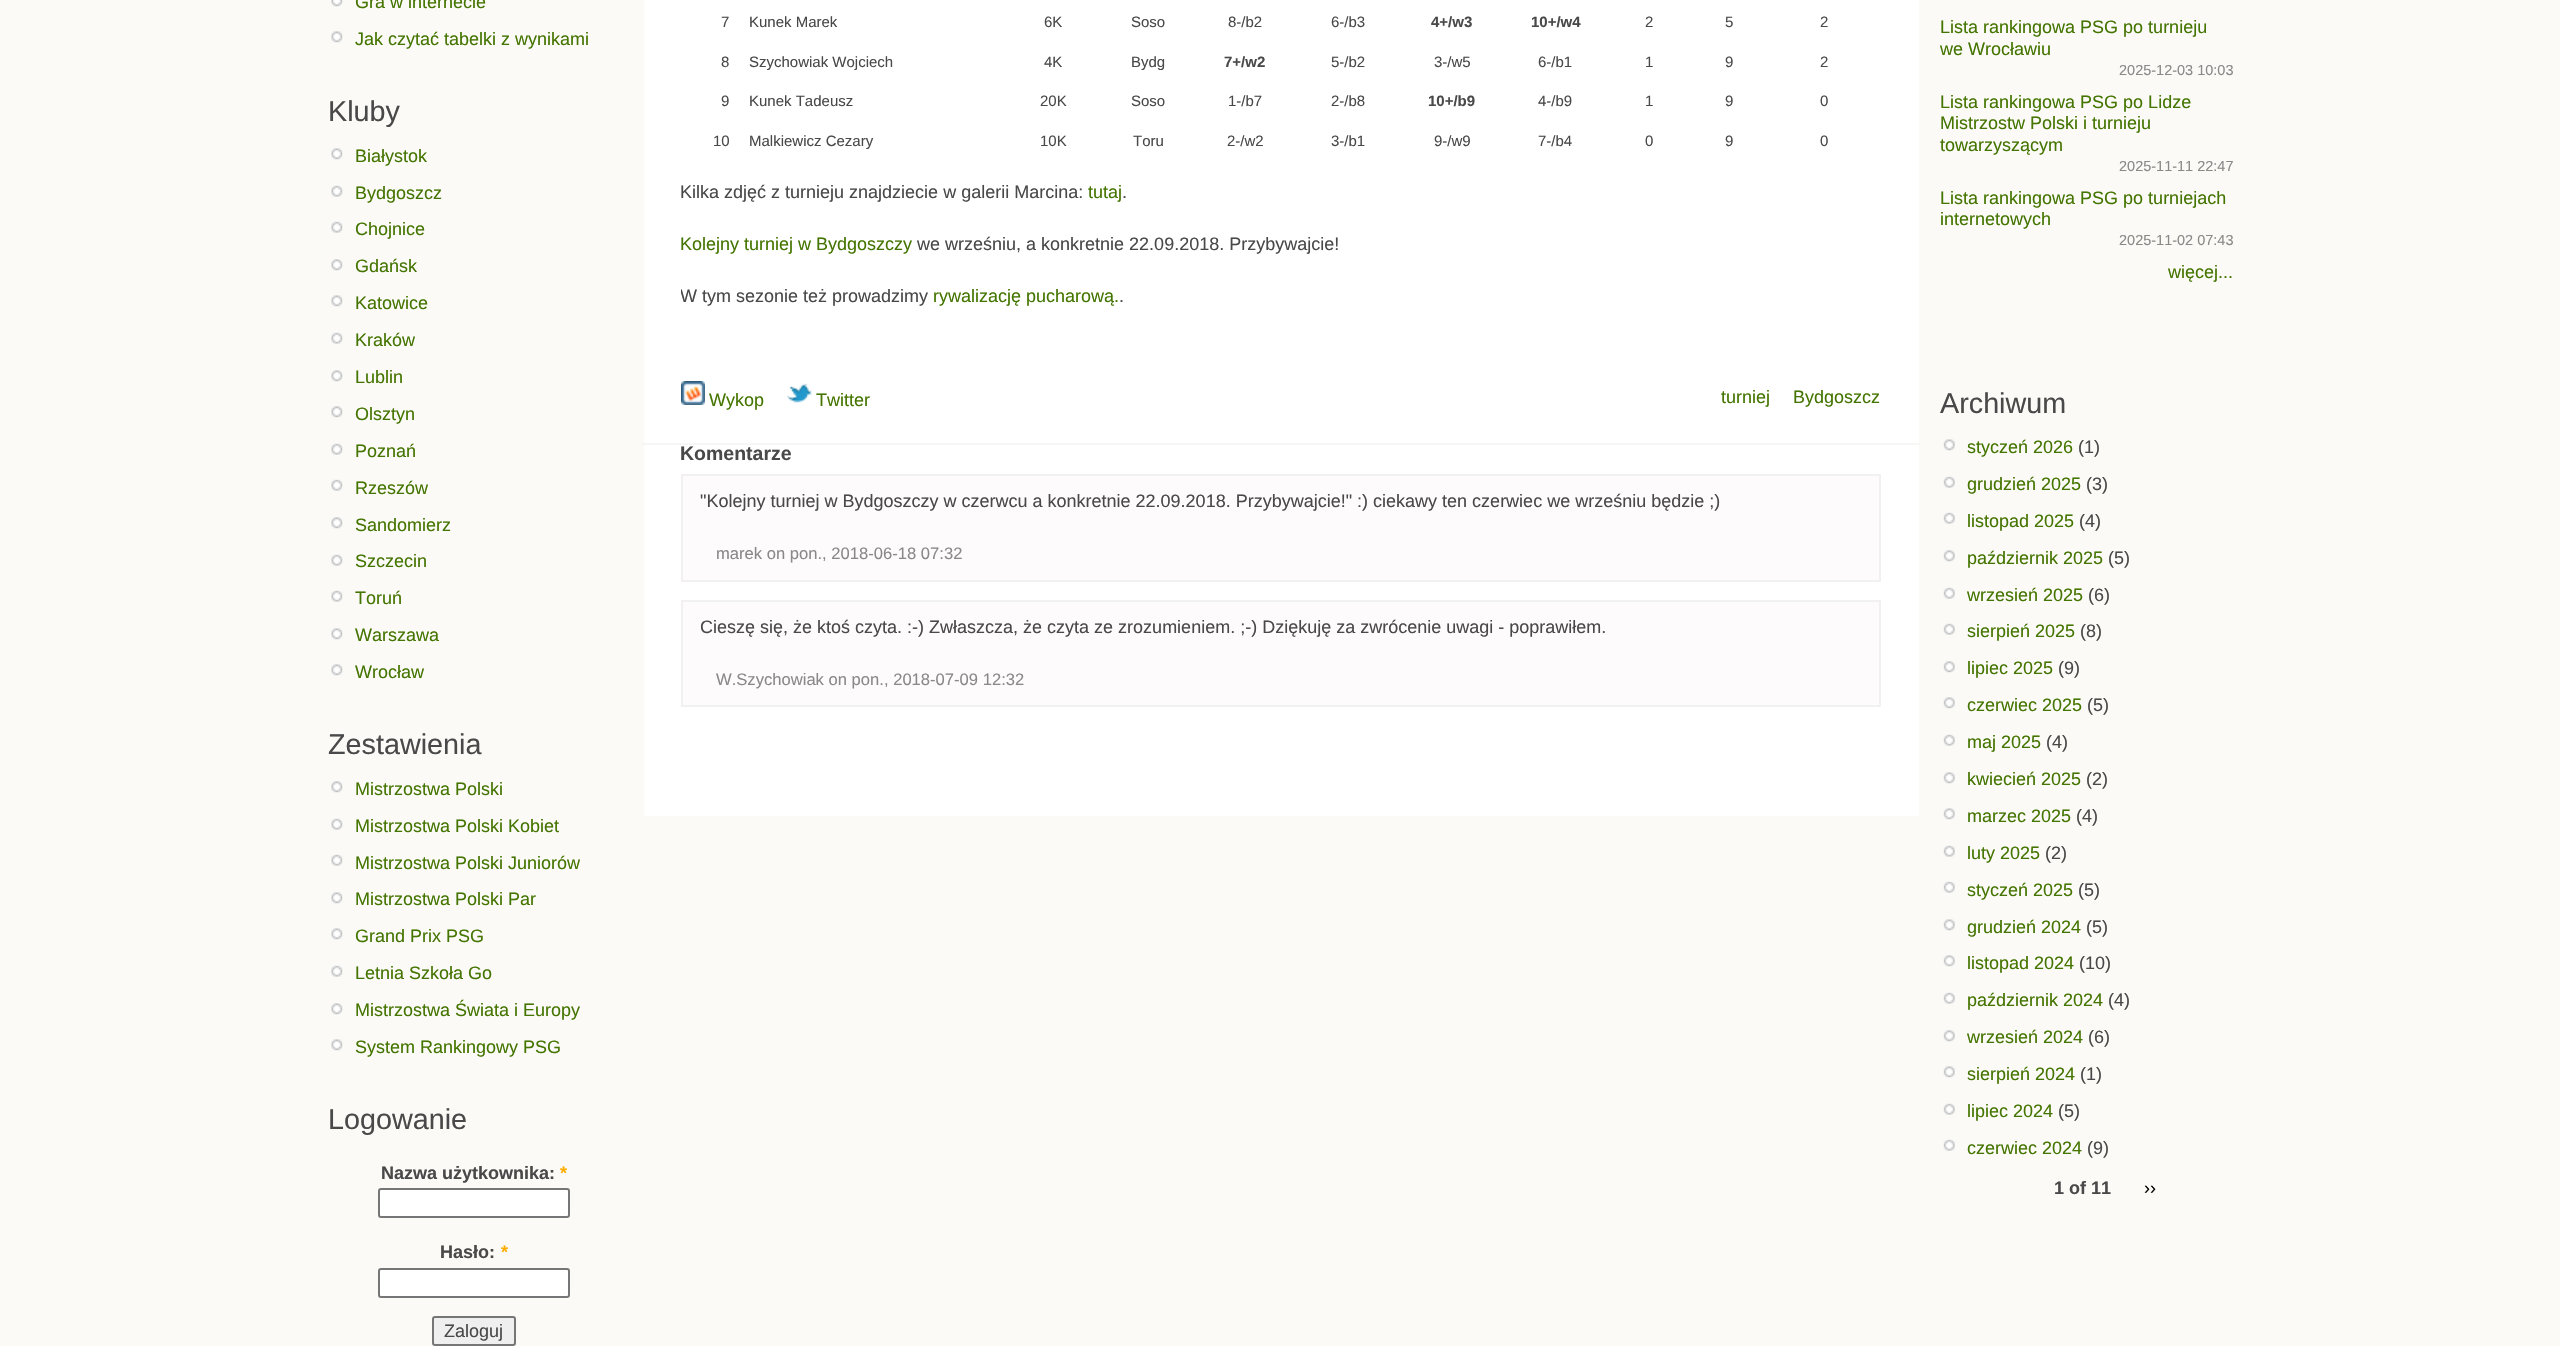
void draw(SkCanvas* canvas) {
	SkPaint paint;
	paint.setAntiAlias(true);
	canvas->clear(0xfffbfaf7);
	canvas->drawImageRect(SkImages::DeferredFromEncodedData(SkData::MakeFromFileName("img1.png")), SkRect::MakeXYWH(331, 0, 12, 7), SkSamplingOptions());
	SkFont f1(fontMgr->matchFamilyStyle("Liberation Sans", SkFontStyle::Normal()), 18);
	f1.setSubpixel(true);
	paint.setColor(0xff457501);
	canvas->drawString("Gra w internecie", 355, 8, f1, paint);
	canvas->drawImageRect(SkImages::DeferredFromEncodedData(SkData::MakeFromFileName("img2.png")), SkRect::MakeXYWH(331, 31, 12, 12), SkSamplingOptions());
	canvas->drawString("Jak czytać tabelki z wynikami", 355, 45, f1, paint);
	SkFont f2(fontMgr->matchFamilyStyle("Liberation Sans", SkFontStyle::Normal()), 28.75);
	f2.setSubpixel(true);
	paint.setColor(0xff494949);
	canvas->drawString("Kluby", 328, 121, f2, paint);
	canvas->drawImageRect(SkImages::DeferredFromEncodedData(SkData::MakeFromFileName("img2.png")), SkRect::MakeXYWH(331, 148, 12, 12), SkSamplingOptions());
	paint.setColor(0xff457501);
	canvas->drawString("Białystok", 355, 162, f1, paint);
	canvas->drawImageRect(SkImages::DeferredFromEncodedData(SkData::MakeFromFileName("img3.png")), SkRect::MakeXYWH(331, 185, 12, 12), SkSamplingOptions());
	canvas->drawString("Bydgoszcz", 355, 199, f1, paint);
	canvas->drawImageRect(SkImages::DeferredFromEncodedData(SkData::MakeFromFileName("img3.png")), SkRect::MakeXYWH(331, 221, 12, 12), SkSamplingOptions());
	canvas->drawString("Chojnice", 355, 235, f1, paint);
	canvas->drawImageRect(SkImages::DeferredFromEncodedData(SkData::MakeFromFileName("img2.png")), SkRect::MakeXYWH(331, 259, 12, 12), SkSamplingOptions());
	canvas->drawString("Gdańsk", 355, 272, f1, paint);
	canvas->drawImageRect(SkImages::DeferredFromEncodedData(SkData::MakeFromFileName("img2.png")), SkRect::MakeXYWH(331, 295, 12, 12), SkSamplingOptions());
	canvas->drawString("Katowice", 355, 309, f1, paint);
	canvas->drawImageRect(SkImages::DeferredFromEncodedData(SkData::MakeFromFileName("img3.png")), SkRect::MakeXYWH(331, 332, 12, 12), SkSamplingOptions());
	canvas->drawString("Kraków", 355, 346, f1, paint);
	canvas->drawImageRect(SkImages::DeferredFromEncodedData(SkData::MakeFromFileName("img2.png")), SkRect::MakeXYWH(331, 370, 12, 12), SkSamplingOptions());
	canvas->drawString("Lublin", 355, 383, f1, paint);
	canvas->drawImageRect(SkImages::DeferredFromEncodedData(SkData::MakeFromFileName("img2.png")), SkRect::MakeXYWH(331, 406, 12, 12), SkSamplingOptions());
	canvas->drawString("Olsztyn", 355, 420, f1, paint);
	canvas->drawImageRect(SkImages::DeferredFromEncodedData(SkData::MakeFromFileName("img3.png")), SkRect::MakeXYWH(331, 443, 12, 12), SkSamplingOptions());
	canvas->drawString("Poznań", 355, 457, f1, paint);
	canvas->drawImageRect(SkImages::DeferredFromEncodedData(SkData::MakeFromFileName("img3.png")), SkRect::MakeXYWH(331, 479, 12, 12), SkSamplingOptions());
	canvas->drawString("Rzeszów", 355, 494, f1, paint);
	canvas->drawImageRect(SkImages::DeferredFromEncodedData(SkData::MakeFromFileName("img2.png")), SkRect::MakeXYWH(331, 517, 12, 12), SkSamplingOptions());
	canvas->drawString("Sandomierz", 355, 531, f1, paint);
	canvas->drawImageRect(SkImages::DeferredFromEncodedData(SkData::MakeFromFileName("img3.png")), SkRect::MakeXYWH(331, 554, 12, 12), SkSamplingOptions());
	canvas->drawString("Szczecin", 355, 567, f1, paint);
	canvas->drawImageRect(SkImages::DeferredFromEncodedData(SkData::MakeFromFileName("img3.png")), SkRect::MakeXYWH(331, 590, 12, 12), SkSamplingOptions());
	canvas->drawString("Toruń", 355, 604, f1, paint);
	canvas->drawImageRect(SkImages::DeferredFromEncodedData(SkData::MakeFromFileName("img2.png")), SkRect::MakeXYWH(331, 628, 12, 12), SkSamplingOptions());
	canvas->drawString("Warszawa", 355, 641, f1, paint);
	canvas->drawImageRect(SkImages::DeferredFromEncodedData(SkData::MakeFromFileName("img2.png")), SkRect::MakeXYWH(331, 664, 12, 12), SkSamplingOptions());
	canvas->drawString("Wrocław", 355, 678, f1, paint);
	paint.setColor(0xff494949);
	canvas->drawString("Zestawienia", 328, 754, f2, paint);
	canvas->drawImageRect(SkImages::DeferredFromEncodedData(SkData::MakeFromFileName("img2.png")), SkRect::MakeXYWH(331, 781, 12, 12), SkSamplingOptions());
	paint.setColor(0xff457501);
	canvas->drawString("Mistrzostwa Polski", 355, 795, f1, paint);
	canvas->drawImageRect(SkImages::DeferredFromEncodedData(SkData::MakeFromFileName("img3.png")), SkRect::MakeXYWH(331, 818, 12, 12), SkSamplingOptions());
	canvas->drawString("Mistrzostwa Polski Kobiet", 355, 832, f1, paint);
	canvas->drawImageRect(SkImages::DeferredFromEncodedData(SkData::MakeFromFileName("img3.png")), SkRect::MakeXYWH(331, 854, 12, 12), SkSamplingOptions());
	canvas->drawString("Mistrzostwa Polski Juniorów", 355, 869, f1, paint);
	canvas->drawImageRect(SkImages::DeferredFromEncodedData(SkData::MakeFromFileName("img2.png")), SkRect::MakeXYWH(331, 892, 12, 12), SkSamplingOptions());
	canvas->drawString("Mistrzostwa Polski Par", 355, 905, f1, paint);
	canvas->drawImageRect(SkImages::DeferredFromEncodedData(SkData::MakeFromFileName("img2.png")), SkRect::MakeXYWH(331, 928, 12, 12), SkSamplingOptions());
	canvas->drawString("Grand Prix PSG", 355, 942, f1, paint);
	canvas->drawImageRect(SkImages::DeferredFromEncodedData(SkData::MakeFromFileName("img3.png")), SkRect::MakeXYWH(331, 965, 12, 12), SkSamplingOptions());
	canvas->drawString("Letnia Szkoła Go", 355, 979, f1, paint);
	canvas->drawImageRect(SkImages::DeferredFromEncodedData(SkData::MakeFromFileName("img2.png")), SkRect::MakeXYWH(331, 1003, 12, 12), SkSamplingOptions());
	canvas->drawString("Mistrzostwa Świata i Europy", 355, 1016, f1, paint);
	canvas->drawImageRect(SkImages::DeferredFromEncodedData(SkData::MakeFromFileName("img2.png")), SkRect::MakeXYWH(331, 1039, 12, 12), SkSamplingOptions());
	canvas->drawString("System Rankingowy PSG", 355, 1053, f1, paint);
	paint.setColor(0xff494949);
	canvas->drawString("Logowanie", 328, 1129, f2, paint);
	SkFont f3(fontMgr->matchFamilyStyle("Liberation Sans", SkFontStyle::Bold()), 18);
	f3.setSubpixel(true);
	canvas->drawString("Nazwa użytkownika:", 381, 1179, f3, paint);
	paint.setColor(0xffffae00);
	canvas->drawString("*", 560, 1179, f3, paint);
	paint.setColor(0xffffffff);
	canvas->drawRoundRect(SkRect::MakeXYWH(379, 1189, 190, 28), 2, 2, paint);
	paint.setStroke(true);
	paint.setStrokeWidth(2);
	paint.setColor(0xff767676);
	canvas->drawRoundRect(SkRect::MakeXYWH(379, 1189, 190, 28), 2, 2, paint);
	paint.setStroke(false);
	paint.setColor(0xff494949);
	canvas->drawString("Hasło:", 440, 1258, f3, paint);
	paint.setColor(0xffffae00);
	canvas->drawString("*", 501, 1258, f3, paint);
	paint.setColor(0xffffffff);
	canvas->drawRoundRect(SkRect::MakeXYWH(379, 1269, 190, 28), 2, 2, paint);
	paint.setStroke(true);
	paint.setColor(0xff767676);
	canvas->drawRoundRect(SkRect::MakeXYWH(379, 1269, 190, 28), 2, 2, paint);
	paint.setStroke(false);
	paint.setColor(0xffefefef);
	canvas->drawRoundRect(SkRect::MakeXYWH(433, 1317, 82, 28), 2, 2, paint);
	paint.setStroke(true);
	paint.setColor(0xff767676);
	canvas->drawRoundRect(SkRect::MakeXYWH(433, 1317, 82, 28), 2, 2, paint);
	paint.setStroke(false);
	paint.setColor(0xff494949);
	canvas->drawString("Zaloguj", 444, 1337, f1, paint);
	paint.setColor(0xffffffff);
	canvas->drawRect(SkRect::MakeXYWH(644, 0, 1275, 816), paint);
	paint.setColor(0xfff6f6f5);
	canvas->drawRect(SkRect::MakeXYWH(642, 443, 1278, 2), paint);
	SkFont f4(fontMgr->matchFamilyStyle("Liberation Sans", SkFontStyle::Normal()), 15);
	f4.setSubpixel(true);
	paint.setColor(0xff494949);
	canvas->drawString("7", 721, 27, f4, paint);
	canvas->drawString("Kunek Marek", 749, 27, f4, paint);
	canvas->drawString("6K", 1044, 27, f4, paint);
	canvas->drawString("Soso", 1131, 27, f4, paint);
	canvas->drawString("8-/b2", 1228, 27, f4, paint);
	canvas->drawString("6-/b3", 1331, 27, f4, paint);
	SkFont f5(fontMgr->matchFamilyStyle("Liberation Sans", SkFontStyle::Bold()), 15);
	f5.setSubpixel(true);
	canvas->drawString("4+/w3", 1431, 27, f5, paint);
	canvas->drawString("10+/w4", 1531, 27, f5, paint);
	canvas->drawString("2", 1645, 27, f4, paint);
	canvas->drawString("5", 1725, 27, f4, paint);
	canvas->drawString("2", 1820, 27, f4, paint);
	canvas->drawString("8", 721, 67, f4, paint);
	canvas->drawString("Szychowiak Wojciech", 749, 67, f4, paint);
	canvas->drawString("4K", 1044, 67, f4, paint);
	canvas->drawString("Bydg", 1131, 67, f4, paint);
	canvas->drawString("7+/w2", 1224, 67, f5, paint);
	canvas->drawString("5-/b2", 1331, 67, f4, paint);
	canvas->drawString("3-/w5", 1434, 67, f4, paint);
	canvas->drawString("6-/b1", 1538, 67, f4, paint);
	canvas->drawString("1", 1645, 67, f4, paint);
	canvas->drawString("9", 1725, 67, f4, paint);
	canvas->drawString("2", 1820, 67, f4, paint);
	canvas->drawString("9", 721, 106, f4, paint);
	canvas->drawString("Kunek Tadeusz", 749, 106, f4, paint);
	canvas->drawString("20K", 1040, 106, f4, paint);
	canvas->drawString("Soso", 1131, 106, f4, paint);
	canvas->drawString("1-/b7", 1228, 106, f4, paint);
	canvas->drawString("2-/b8", 1331, 106, f4, paint);
	canvas->drawString("10+/b9", 1428, 106, f5, paint);
	canvas->drawString("4-/b9", 1538, 106, f4, paint);
	canvas->drawString("1", 1645, 106, f4, paint);
	canvas->drawString("9", 1725, 106, f4, paint);
	canvas->drawString("0", 1820, 106, f4, paint);
	canvas->drawString("10", 713, 146, f4, paint);
	canvas->drawString("Malkiewicz Cezary", 749, 146, f4, paint);
	canvas->drawString("10K", 1040, 146, f4, paint);
	canvas->drawString("Toru", 1133, 146, f4, paint);
	canvas->drawString("2-/w2", 1227, 146, f4, paint);
	canvas->drawString("3-/b1", 1331, 146, f4, paint);
	canvas->drawString("9-/w9", 1434, 146, f4, paint);
	canvas->drawString("7-/b4", 1538, 146, f4, paint);
	canvas->drawString("0", 1645, 146, f4, paint);
	canvas->drawString("9", 1725, 146, f4, paint);
	canvas->drawString("0", 1820, 146, f4, paint);
	canvas->drawString("Kilka zdjęć z turnieju znajdziecie w galerii Marcina:", 680, 198, f1, paint);
	paint.setColor(0xff457501);
	canvas->drawString("tutaj", 1088, 198, f1, paint);
	paint.setColor(0xff494949);
	canvas->drawString(".", 1122, 198, f1, paint);
	paint.setColor(0xff457501);
	canvas->drawString("Kolejny turniej w Bydgoszczy", 680, 250, f1, paint);
	paint.setColor(0xff494949);
	canvas->drawString("we wrześniu, a konkretnie 22.09.2018. Przybywajcie!", 917, 250, f1, paint);
	canvas->save();
	canvas->clipRect(SkRect::MakeXYWH(681, 0, 1200, 371));
	canvas->drawString("W tym sezonie też prowadzimy", 680, 302, f1, paint);
	canvas->restore();
	paint.setColor(0xff457501);
	canvas->drawString("rywalizację pucharową.", 933, 302, f1, paint);
	paint.setColor(0xff494949);
	canvas->drawString(".", 1119, 302, f1, paint);
	canvas->drawImageRect(SkImages::DeferredFromEncodedData(SkData::MakeFromFileName("img4.png")), SkRect::MakeXYWH(681, 381, 24, 24), SkSamplingOptions());
	paint.setColor(0xff457501);
	canvas->drawString("Wykop", 709, 406, f1, paint);
	canvas->drawImageRect(SkImages::DeferredFromEncodedData(SkData::MakeFromFileName("img5.png")), SkRect::MakeXYWH(787, 383, 25, 20), SkSamplingOptions());
	canvas->drawString("Twitter", 816, 406, f1, paint);
	canvas->drawString("turniej", 1721, 403, f1, paint);
	canvas->drawString("Bydgoszcz", 1793, 403, f1, paint);
	SkFont f6(fontMgr->matchFamilyStyle("Liberation Sans", SkFontStyle::Bold()), 19.5);
	f6.setSubpixel(true);
	paint.setColor(0xff494949);
	canvas->drawString("Komentarze", 680, 460, f6, paint);
	paint.setColor(0xfffdfbfb);
	canvas->drawRect(SkRect::MakeXYWH(682, 475, 1198, 106), paint);
	paint.setStroke(true);
	paint.setColor(0xfff1f1f1);
	canvas->drawRect(SkRect::MakeXYWH(682, 475, 1198, 106), paint);
	paint.setStroke(false);
	paint.setColor(0xff494949);
	canvas->drawString("\"Kolejny turniej w Bydgoszczy w czerwcu a konkretnie 22.09.2018. Przybywajcie!\" :) ciekawy ten czerwiec we wrześniu będzie ;)", 700, 507, f1, paint);
	SkFont f7(fontMgr->matchFamilyStyle("Liberation Sans", SkFontStyle::Normal()), 16.6);
	f7.setSubpixel(true);
	paint.setColor(0xff898989);
	canvas->drawString("marek on pon., 2018-06-18 07:32", 716, 559, f7, paint);
	paint.setColor(0xfffdfbfb);
	canvas->drawRect(SkRect::MakeXYWH(682, 601, 1198, 105), paint);
	paint.setStroke(true);
	paint.setColor(0xfff1f1f1);
	canvas->drawRect(SkRect::MakeXYWH(682, 601, 1198, 105), paint);
	paint.setStroke(false);
	paint.setColor(0xff494949);
	canvas->drawString("Cieszę się, że ktoś czyta. :-) Zwłaszcza, że czyta ze zrozumieniem. ;-) Dziękuję za zwrócenie uwagi - poprawiłem.", 700, 633, f1, paint);
	paint.setColor(0xff898989);
	canvas->drawString("W.Szychowiak on pon., 2018-07-09 12:32", 716, 685, f7, paint);
	paint.setColor(0xff457501);
	canvas->drawString("Lista rankingowa PSG po turnieju", 1940, 33, f1, paint);
	canvas->drawString("we Wrocławiu", 1940, 55, f1, paint);
	SkFont f8(fontMgr->matchFamilyStyle("Liberation Sans", SkFontStyle::Normal()), 14.5);
	f8.setSubpixel(true);
	paint.setColor(0xff898989);
	canvas->drawString("2025-12-03 10:03", 2119, 75, f8, paint);
	paint.setColor(0xff457501);
	canvas->drawString("Lista rankingowa PSG po Lidze", 1940, 108, f1, paint);
	canvas->drawString("Mistrzostw Polski i turnieju", 1940, 129, f1, paint);
	canvas->drawString("towarzyszącym", 1940, 151, f1, paint);
	paint.setColor(0xff898989);
	canvas->drawString("2025-11-11 22:47", 2119, 171, f8, paint);
	paint.setColor(0xff457501);
	canvas->drawString("Lista rankingowa PSG po turniejach", 1940, 204, f1, paint);
	canvas->drawString("internetowych", 1940, 225, f1, paint);
	paint.setColor(0xff898989);
	canvas->drawString("2025-11-02 07:43", 2119, 245, f8, paint);
	paint.setColor(0xff457501);
	canvas->drawString("więcej...", 2168, 278, f1, paint);
	paint.setColor(0xff494949);
	canvas->drawString("Archiwum", 1940, 413, f2, paint);
	canvas->drawImageRect(SkImages::DeferredFromEncodedData(SkData::MakeFromFileName("img6.png")), SkRect::MakeXYWH(1943, 439, 12, 12), SkSamplingOptions());
	paint.setColor(0xff457501);
	canvas->drawString("styczeń 2026", 1967, 453, f1, paint);
	paint.setColor(0xff494949);
	canvas->drawString("(1)", 2078, 453, f1, paint);
	canvas->drawImageRect(SkImages::DeferredFromEncodedData(SkData::MakeFromFileName("img7.png")), SkRect::MakeXYWH(1943, 476, 12, 12), SkSamplingOptions());
	paint.setColor(0xff457501);
	canvas->drawString("grudzień 2025", 1967, 490, f1, paint);
	paint.setColor(0xff494949);
	canvas->drawString("(3)", 2086, 490, f1, paint);
	canvas->drawImageRect(SkImages::DeferredFromEncodedData(SkData::MakeFromFileName("img7.png")), SkRect::MakeXYWH(1943, 512, 12, 12), SkSamplingOptions());
	paint.setColor(0xff457501);
	canvas->drawString("listopad 2025", 1967, 527, f1, paint);
	paint.setColor(0xff494949);
	canvas->drawString("(4)", 2079, 527, f1, paint);
	canvas->drawImageRect(SkImages::DeferredFromEncodedData(SkData::MakeFromFileName("img6.png")), SkRect::MakeXYWH(1943, 550, 12, 12), SkSamplingOptions());
	paint.setColor(0xff457501);
	canvas->drawString("październik 2025", 1967, 564, f1, paint);
	paint.setColor(0xff494949);
	canvas->drawString("(5)", 2108, 564, f1, paint);
	canvas->drawImageRect(SkImages::DeferredFromEncodedData(SkData::MakeFromFileName("img7.png")), SkRect::MakeXYWH(1943, 587, 12, 12), SkSamplingOptions());
	paint.setColor(0xff457501);
	canvas->drawString("wrzesień 2025", 1967, 601, f1, paint);
	paint.setColor(0xff494949);
	canvas->drawString("(6)", 2088, 601, f1, paint);
	canvas->drawImageRect(SkImages::DeferredFromEncodedData(SkData::MakeFromFileName("img7.png")), SkRect::MakeXYWH(1943, 623, 12, 12), SkSamplingOptions());
	paint.setColor(0xff457501);
	canvas->drawString("sierpień 2025", 1967, 637, f1, paint);
	paint.setColor(0xff494949);
	canvas->drawString("(8)", 2080, 637, f1, paint);
	canvas->drawImageRect(SkImages::DeferredFromEncodedData(SkData::MakeFromFileName("img6.png")), SkRect::MakeXYWH(1943, 661, 12, 12), SkSamplingOptions());
	paint.setColor(0xff457501);
	canvas->drawString("lipiec 2025", 1967, 674, f1, paint);
	paint.setColor(0xff494949);
	canvas->drawString("(9)", 2058, 674, f1, paint);
	canvas->drawImageRect(SkImages::DeferredFromEncodedData(SkData::MakeFromFileName("img6.png")), SkRect::MakeXYWH(1943, 697, 12, 12), SkSamplingOptions());
	paint.setColor(0xff457501);
	canvas->drawString("czerwiec 2025", 1967, 711, f1, paint);
	paint.setColor(0xff494949);
	canvas->drawString("(5)", 2087, 711, f1, paint);
	canvas->drawImageRect(SkImages::DeferredFromEncodedData(SkData::MakeFromFileName("img7.png")), SkRect::MakeXYWH(1943, 734, 12, 12), SkSamplingOptions());
	paint.setColor(0xff457501);
	canvas->drawString("maj 2025", 1967, 748, f1, paint);
	paint.setColor(0xff494949);
	canvas->drawString("(4)", 2046, 748, f1, paint);
	canvas->drawImageRect(SkImages::DeferredFromEncodedData(SkData::MakeFromFileName("img6.png")), SkRect::MakeXYWH(1943, 772, 12, 12), SkSamplingOptions());
	paint.setColor(0xff457501);
	canvas->drawString("kwiecień 2025", 1967, 785, f1, paint);
	paint.setColor(0xff494949);
	canvas->drawString("(2)", 2086, 785, f1, paint);
	canvas->drawImageRect(SkImages::DeferredFromEncodedData(SkData::MakeFromFileName("img6.png")), SkRect::MakeXYWH(1943, 808, 12, 12), SkSamplingOptions());
	paint.setColor(0xff457501);
	canvas->drawString("marzec 2025", 1967, 822, f1, paint);
	paint.setColor(0xff494949);
	canvas->drawString("(4)", 2076, 822, f1, paint);
	canvas->drawImageRect(SkImages::DeferredFromEncodedData(SkData::MakeFromFileName("img7.png")), SkRect::MakeXYWH(1943, 845, 12, 12), SkSamplingOptions());
	paint.setColor(0xff457501);
	canvas->drawString("luty 2025", 1967, 859, f1, paint);
	paint.setColor(0xff494949);
	canvas->drawString("(2)", 2045, 859, f1, paint);
	canvas->drawImageRect(SkImages::DeferredFromEncodedData(SkData::MakeFromFileName("img7.png")), SkRect::MakeXYWH(1943, 881, 12, 12), SkSamplingOptions());
	paint.setColor(0xff457501);
	canvas->drawString("styczeń 2025", 1967, 896, f1, paint);
	paint.setColor(0xff494949);
	canvas->drawString("(5)", 2078, 896, f1, paint);
	canvas->drawImageRect(SkImages::DeferredFromEncodedData(SkData::MakeFromFileName("img6.png")), SkRect::MakeXYWH(1943, 919, 12, 12), SkSamplingOptions());
	paint.setColor(0xff457501);
	canvas->drawString("grudzień 2024", 1967, 933, f1, paint);
	paint.setColor(0xff494949);
	canvas->drawString("(5)", 2086, 933, f1, paint);
	canvas->drawImageRect(SkImages::DeferredFromEncodedData(SkData::MakeFromFileName("img6.png")), SkRect::MakeXYWH(1943, 955, 12, 12), SkSamplingOptions());
	paint.setColor(0xff457501);
	canvas->drawString("listopad 2024", 1967, 969, f1, paint);
	paint.setColor(0xff494949);
	canvas->drawString("(10)", 2079, 969, f1, paint);
	canvas->drawImageRect(SkImages::DeferredFromEncodedData(SkData::MakeFromFileName("img7.png")), SkRect::MakeXYWH(1943, 992, 12, 12), SkSamplingOptions());
	paint.setColor(0xff457501);
	canvas->drawString("październik 2024", 1967, 1006, f1, paint);
	paint.setColor(0xff494949);
	canvas->drawString("(4)", 2108, 1006, f1, paint);
	canvas->drawImageRect(SkImages::DeferredFromEncodedData(SkData::MakeFromFileName("img6.png")), SkRect::MakeXYWH(1943, 1030, 12, 12), SkSamplingOptions());
	paint.setColor(0xff457501);
	canvas->drawString("wrzesień 2024", 1967, 1043, f1, paint);
	paint.setColor(0xff494949);
	canvas->drawString("(6)", 2088, 1043, f1, paint);
	canvas->drawImageRect(SkImages::DeferredFromEncodedData(SkData::MakeFromFileName("img6.png")), SkRect::MakeXYWH(1943, 1066, 12, 12), SkSamplingOptions());
	paint.setColor(0xff457501);
	canvas->drawString("sierpień 2024", 1967, 1080, f1, paint);
	paint.setColor(0xff494949);
	canvas->drawString("(1)", 2080, 1080, f1, paint);
	canvas->drawImageRect(SkImages::DeferredFromEncodedData(SkData::MakeFromFileName("img7.png")), SkRect::MakeXYWH(1943, 1103, 12, 12), SkSamplingOptions());
	paint.setColor(0xff457501);
	canvas->drawString("lipiec 2024", 1967, 1117, f1, paint);
	paint.setColor(0xff494949);
	canvas->drawString("(5)", 2058, 1117, f1, paint);
	canvas->drawImageRect(SkImages::DeferredFromEncodedData(SkData::MakeFromFileName("img7.png")), SkRect::MakeXYWH(1943, 1139, 12, 12), SkSamplingOptions());
	paint.setColor(0xff457501);
	canvas->drawString("czerwiec 2024", 1967, 1154, f1, paint);
	paint.setColor(0xff494949);
	canvas->drawString("(9)", 2087, 1154, f1, paint);
	canvas->drawString("1 of 11", 2054, 1194, f3, paint);
	paint.setColor(0xff000000);
	canvas->drawString("››", 2144, 1194, f1, paint);
}
